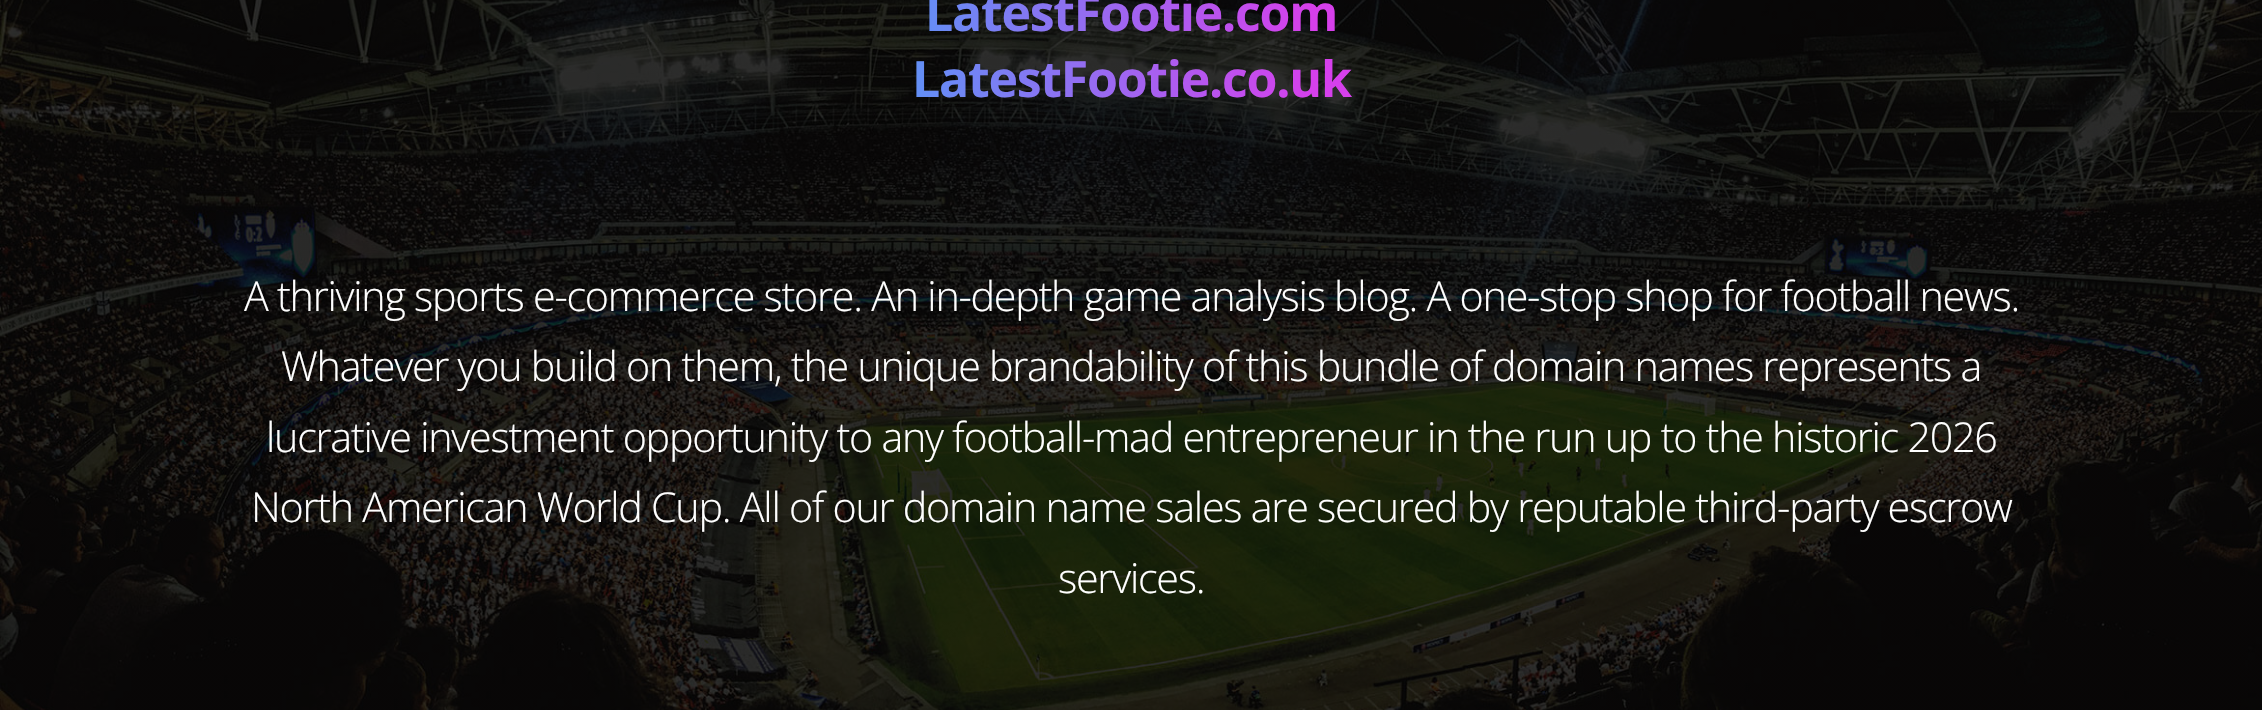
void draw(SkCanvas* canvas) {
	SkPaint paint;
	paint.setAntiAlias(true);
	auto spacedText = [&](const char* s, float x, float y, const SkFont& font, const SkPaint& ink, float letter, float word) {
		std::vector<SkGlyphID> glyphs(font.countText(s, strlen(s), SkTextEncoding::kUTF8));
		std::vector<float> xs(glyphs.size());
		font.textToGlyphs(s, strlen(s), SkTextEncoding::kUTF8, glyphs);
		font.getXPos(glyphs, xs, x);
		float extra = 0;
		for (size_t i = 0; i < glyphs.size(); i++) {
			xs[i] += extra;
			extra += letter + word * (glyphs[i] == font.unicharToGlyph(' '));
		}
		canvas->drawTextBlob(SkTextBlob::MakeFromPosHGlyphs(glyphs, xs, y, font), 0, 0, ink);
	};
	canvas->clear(0xffffffff);
	canvas->drawImageRect(SkImages::DeferredFromEncodedData(SkData::MakeFromFileName("img1.png")), SkRect::MakeXYWH(0, 0, 2262, 710), SkSamplingOptions());
	SkFont f1(fontMgr->matchFamilyStyle("Open Sans", SkFontStyle::Bold()), 50);
	f1.setSubpixel(true);
	{
		const SkColor colors[] = {0xffd63feb, 0xff38acf9};
		const float stops[] = {0.4, 0.7};
		const SkPoint ends[] = {{2036, 13}, {226, 13}};
		paint.setShader(SkGradientShader::MakeLinear(ends, colors, stops, 2, SkTileMode::kClamp));
		paint.setAlpha(255);
	}
	spacedText("LatestFootie.com", 925, 31, f1, paint, -1.25, 0);
	{
		const SkColor colors[] = {0xffd640ec, 0xff38acf9};
		const float stops[] = {0.4, 0.7};
		const SkPoint ends[] = {{2036, 13}, {226, 13}};
		paint.setShader(SkGradientShader::MakeLinear(ends, colors, stops, 2, SkTileMode::kClamp));
		paint.setAlpha(255);
	}
	spacedText("LatestFootie.co.uk", 912, 97, f1, paint, -1.25, 0);
	SkFont f2(fontMgr->matchFamilyStyle("Open Sans", SkFontStyle(300, SkFontStyle::kNormal_Width, SkFontStyle::kUpright_Slant)), 41.25);
	f2.setSubpixel(true);
	paint.setShader(nullptr);
	paint.setColor(0xffffffff);
	spacedText("A thriving sports e-commerce store. An in-depth game analysis blog. A one-stop shop for football news.", 244, 311, f2, paint, -1.25, 0);
	spacedText("Whatever you build on them, the unique brandability of this bundle of domain names represents a", 281, 381, f2, paint, -1.25, 0);
	spacedText("lucrative investment opportunity to any football-mad entrepreneur in the run up to the historic 2026", 266, 452, f2, paint, -1.25, 0);
	spacedText("North American World Cup. All of our domain name sales are secured by reputable third-party escrow", 251, 522, f2, paint, -1.25, 0);
	spacedText("services.", 1058, 593, f2, paint, -1.25, 0);
}
